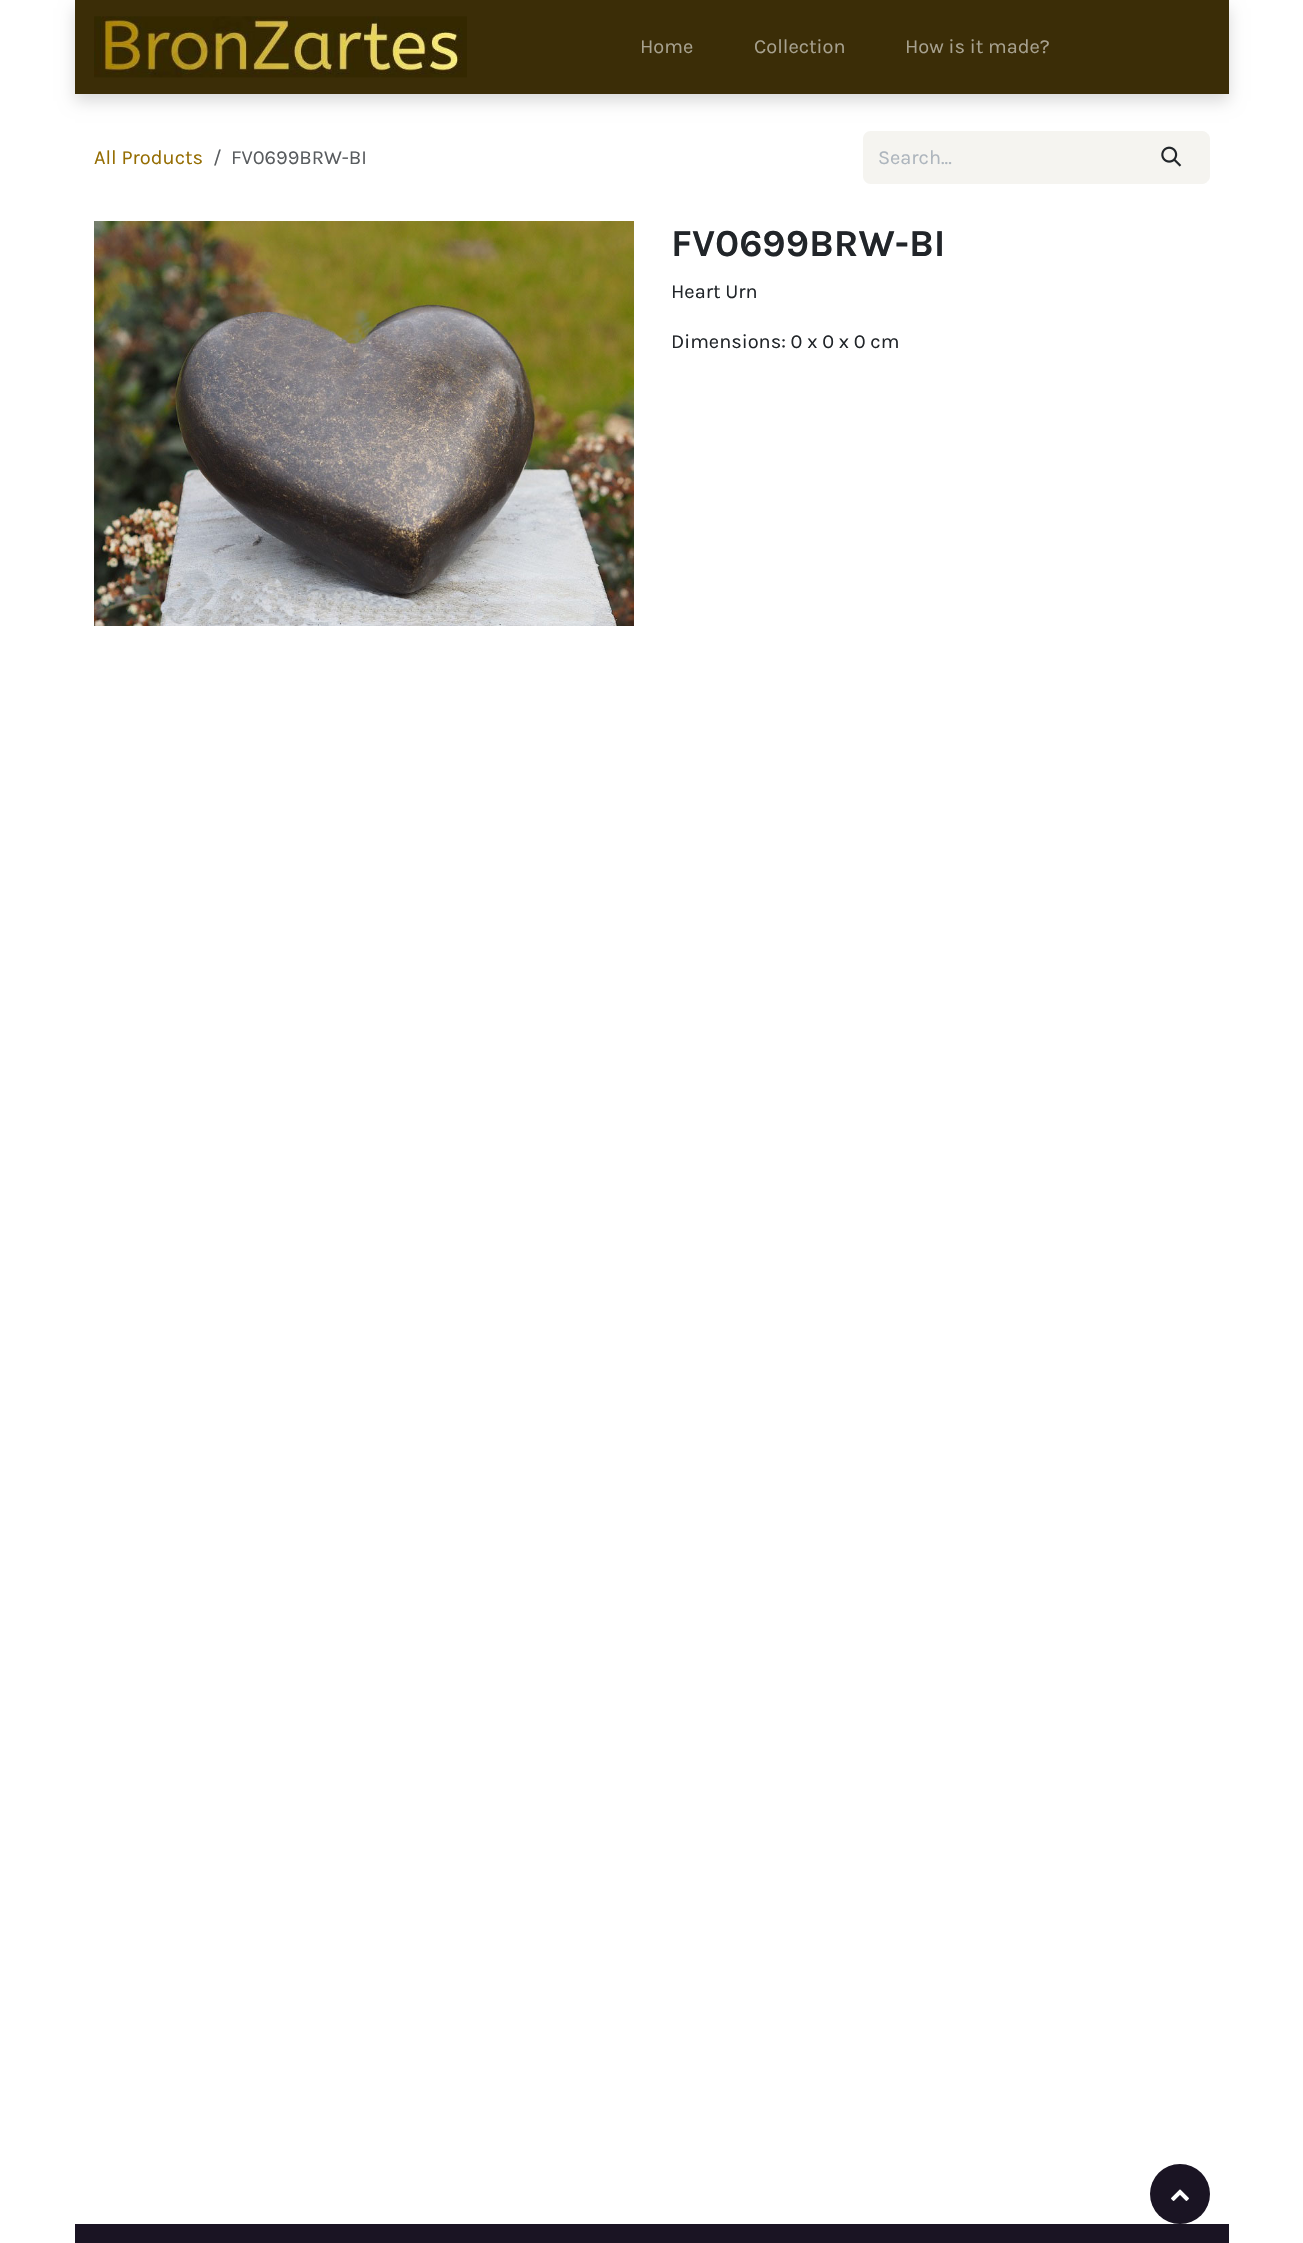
void draw(SkCanvas* canvas) {
	SkPaint paint;
	paint.setAntiAlias(true);
	auto svgPath = [&](const char* data, bool evenOdd = false) {
		SkPath result = *SkParsePath::FromSVGString(data);
		if (evenOdd) result.setFillType(SkPathFillType::kEvenOdd);
		return result;
	};
	canvas->clear(0xffffffff);
	paint.setColor(0x26000000);
	paint.setMaskFilter(SkMaskFilter::MakeBlur(kNormal_SkBlurStyle, 7.5));
	canvas->drawRect(SkRect::MakeXYWH(75, 8, 1154, 93), paint);
	paint.setMaskFilter(nullptr);
	paint.setColor(0xff3b2d07);
	canvas->drawRect(SkRect::MakeXYWH(75, 0, 1154, 94), paint);
	canvas->drawImageRect(SkImages::DeferredFromEncodedData(SkData::MakeFromFileName("img1.png")), SkRect::MakeXYWH(94, 16, 373, 62), SkSamplingOptions());
	SkFont f1(fontMgr->matchFamilyStyle("Karla", SkFontStyle::Normal()), 20);
	f1.setSubpixel(true);
	paint.setColor(0xffa7a18f);
	canvas->drawString("Home", 640, 53, f1, paint);
	canvas->drawString("Collection", 754, 53, f1, paint);
	canvas->drawString("How is it made?", 905, 53, f1, paint);
	paint.setColor(0xff956d02);
	canvas->drawString("All Products", 94, 164, f1, paint);
	paint.setColor(0xff595c5f);
	canvas->drawString("/", 213, 164, f1, paint);
	canvas->drawString("FV0699BRW-BI", 231, 164, f1, paint);
	paint.setColor(0xfff5f4f0);
	canvas->drawPath(svgPath("M871 131H1135V184H871C866.5 184 863 180.5 863 176V139C863 134.5 866.5 131 871 131Z"), paint);
	paint.setColor(0xffadb5bd);
	canvas->drawString("Search...", 878, 164, f1, paint);
	paint.setColor(0xfff5f4f0);
	canvas->drawPath(svgPath("M1134.5 131.5H1202C1206 131.5 1209.5 135 1209.5 139V176C1209.5 180 1206 183.5 1202 183.5H1134.5Z"), paint);
	paint.setStroke(true);
	paint.setStrokeWidth(1);
	canvas->drawPath(svgPath("M1134.5 131.5H1202C1206 131.5 1209.5 135 1209.5 139V176C1209.5 180 1206 183.5 1202 183.5H1134.5Z"), paint);
	canvas->drawImageRect(SkImages::DeferredFromEncodedData(SkData::MakeFromFileName("img2.png")), SkRect::MakeXYWH(1161, 146, 21, 21), SkSamplingOptions());
	canvas->drawImageRect(SkImages::DeferredFromEncodedData(SkData::MakeFromFileName("img3.png")), SkRect::MakeXYWH(94, 221, 540, 405), SkSamplingOptions());
	SkFont f2(fontMgr->matchFamilyStyle("Karla", SkFontStyle::Bold()), 38.25);
	f2.setSubpixel(true);
	paint.setStroke(false);
	paint.setColor(0xff212529);
	canvas->drawString("FV0699BRW-BI", 671, 256, f2, paint);
	canvas->drawString("Heart Urn", 671, 298, f1, paint);
	canvas->drawString("Dimensions: 0 x 0 x 0 cm", 671, 348, f1, paint);
	paint.setColor(0xff1a1423);
	canvas->drawRect(SkRect::MakeXYWH(75, 2224, 1154, 19), paint);
	canvas->drawCircle(1180, 2194, 30, paint);
	canvas->drawImageRect(SkImages::DeferredFromEncodedData(SkData::MakeFromFileName("img4.png")), SkRect::MakeXYWH(1171, 2189, 18, 12), SkSamplingOptions());
}
